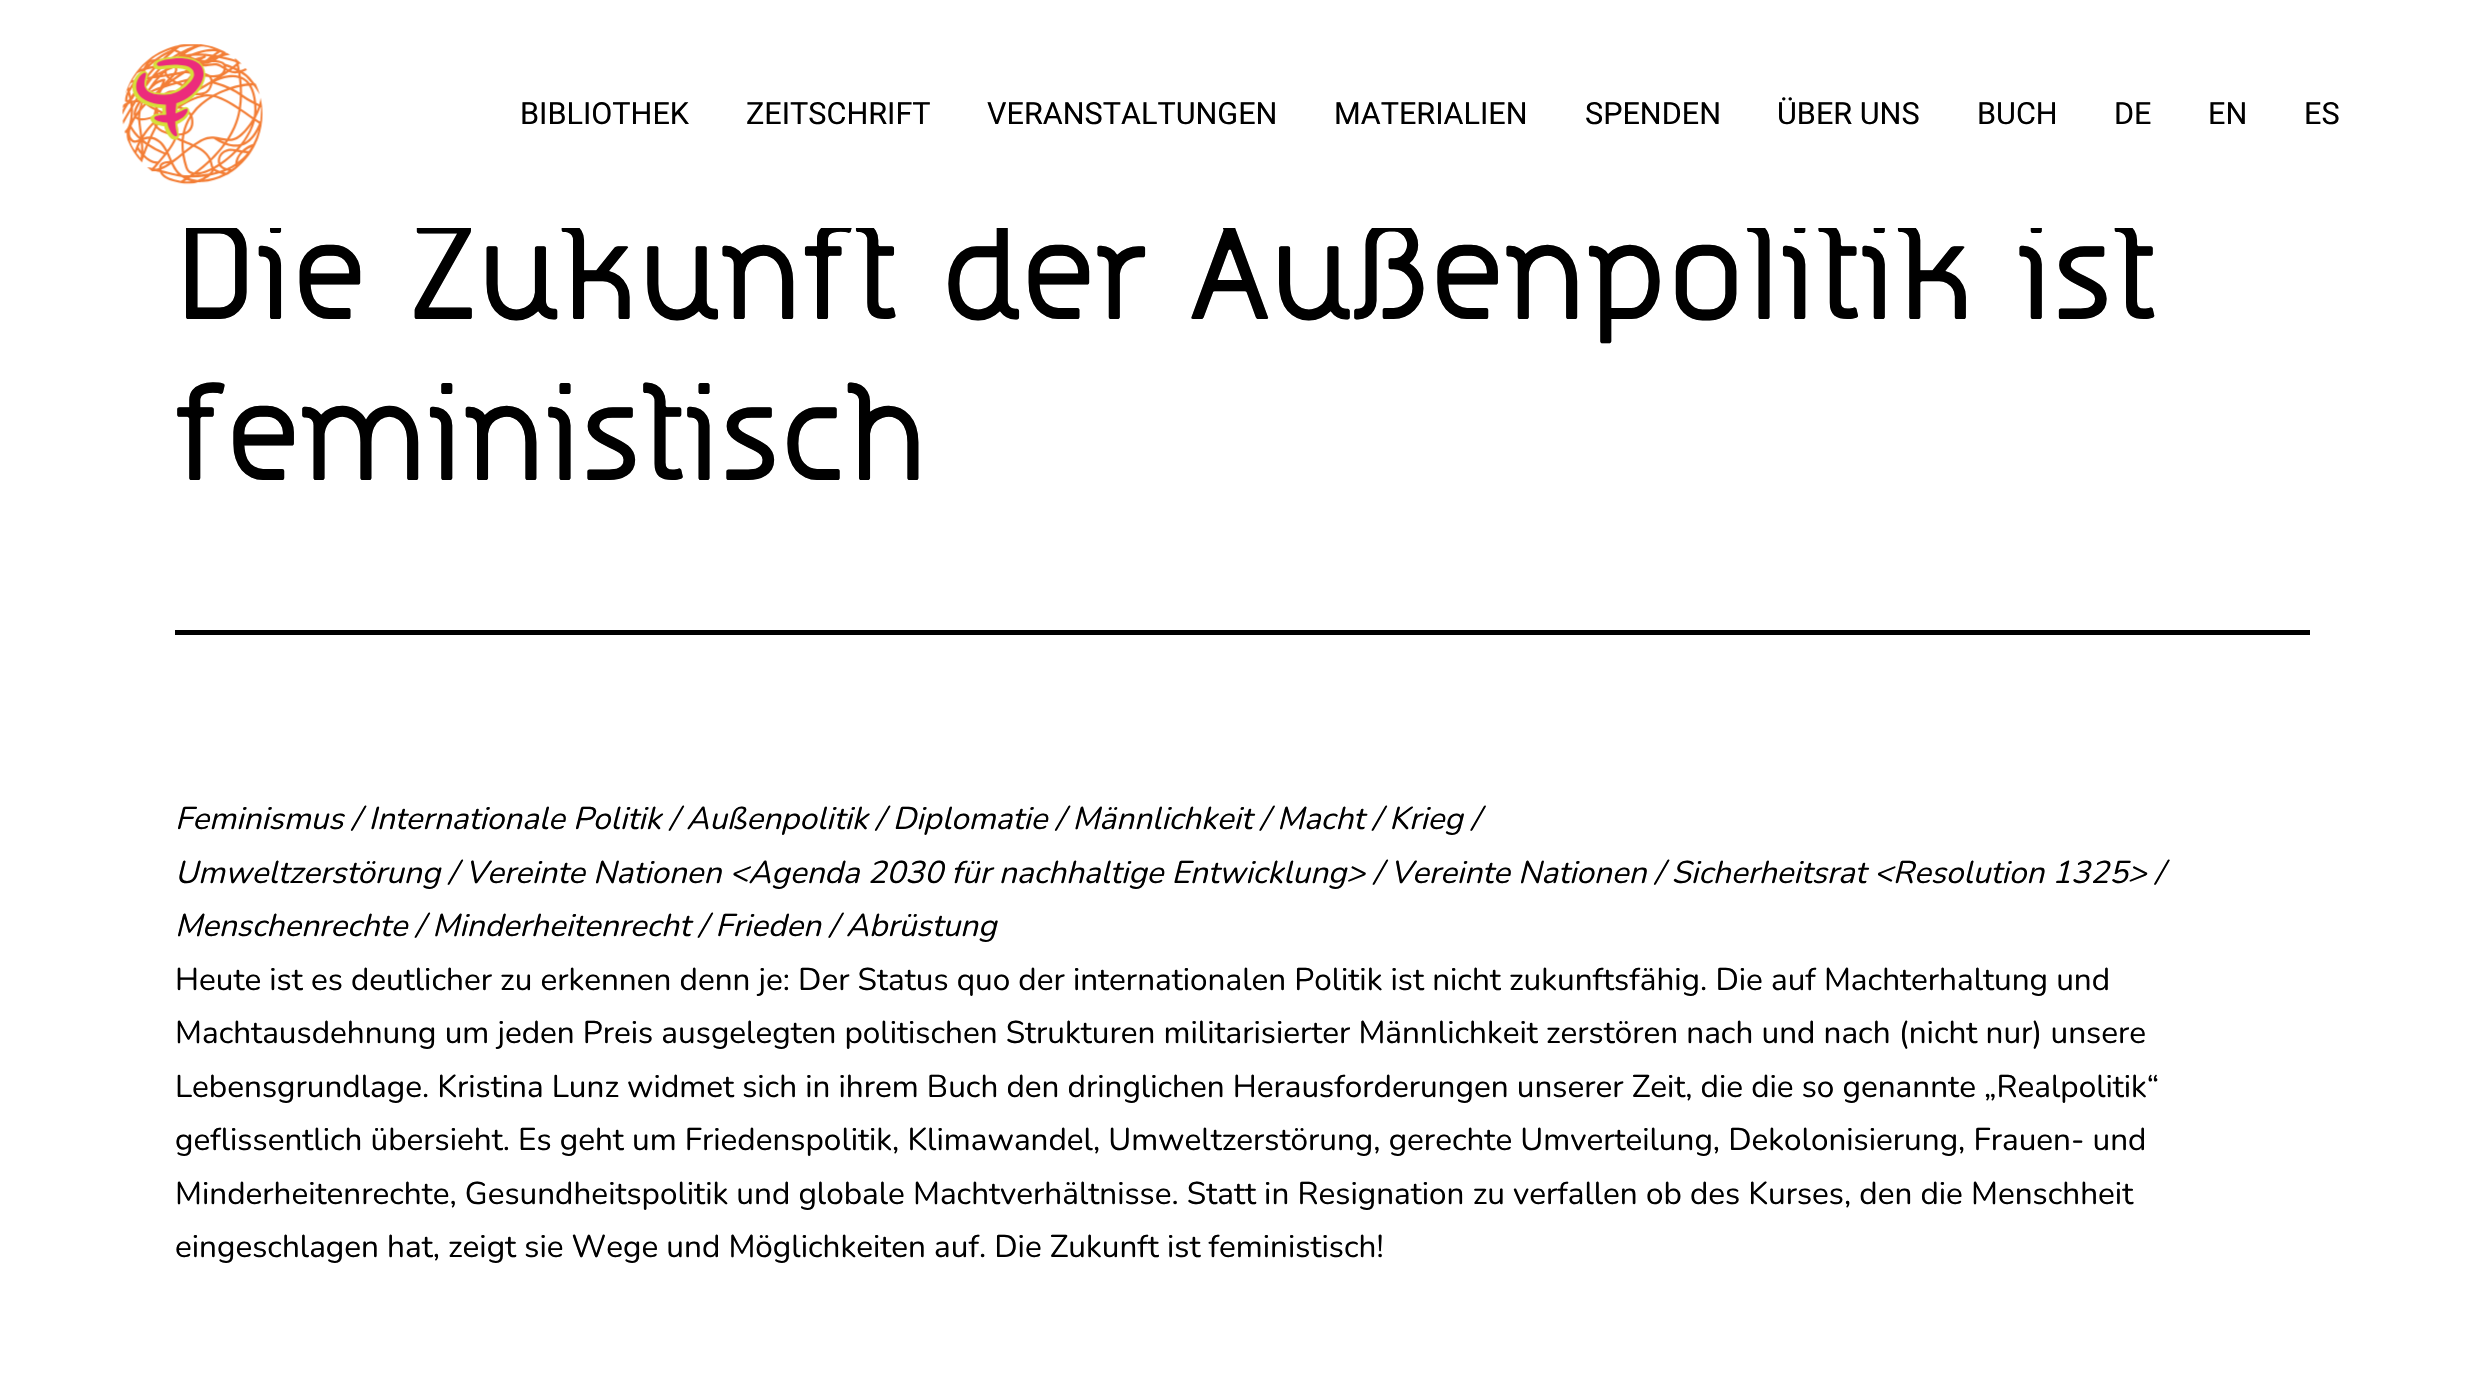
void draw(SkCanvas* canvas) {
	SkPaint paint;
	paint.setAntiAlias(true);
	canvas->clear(0xffffffff);
	SkFont f1(fontMgr->matchFamilyStyle("Stylish", SkFontStyle::Normal()), 147);
	f1.setSubpixel(true);
	paint.setColor(0xff000000);
	canvas->drawString("Die Zukunft der Außenpolitik ist", 175, 319, f1, paint);
	paint.setColor(0xffffffff);
	canvas->drawRect(SkRect::MakeXYWH(186, 220, 1947, 8), paint);
	canvas->drawImageRect(SkImages::DeferredFromEncodedData(SkData::MakeFromFileName("img1.png")), SkRect::MakeXYWH(122, 44, 141, 141), SkSamplingOptions());
	SkFont f2(fontMgr->matchFamilyStyle("Roboto", SkFontStyle::Normal()), 30.6);
	f2.setSubpixel(true);
	paint.setColor(0xff000000);
	canvas->drawString("BIBLIOTHEK", 520, 124, f2, paint);
	canvas->drawString("ZEITSCHRIFT", 746, 124, f2, paint);
	canvas->drawString("VERANSTALTUNGEN", 987, 124, f2, paint);
	canvas->drawString("MATERIALIEN", 1334, 124, f2, paint);
	canvas->drawString("SPENDEN", 1585, 124, f2, paint);
	canvas->drawString("ÜBER UNS", 1777, 124, f2, paint);
	canvas->drawString("BUCH", 1977, 124, f2, paint);
	canvas->drawString("DE", 2114, 124, f2, paint);
	canvas->drawString("EN", 2208, 124, f2, paint);
	canvas->drawString("ES", 2304, 124, f2, paint);
	canvas->drawRect(SkRect::MakeXYWH(175, 630, 2135, 5), paint);
	canvas->drawString("feministisch", 175, 480, f1, paint);
	SkFont f3(fontMgr->matchFamilyStyle("Nunito", SkFontStyle(200, SkFontStyle::kNormal_Width, SkFontStyle::kItalic_Slant)), 31.5);
	f3.setSubpixel(true);
	canvas->drawString("Feminismus / Internationale Politik / Außenpolitik / Diplomatie / Männlichkeit / Macht / Krieg /", 175, 829, f3, paint);
	canvas->drawString("Umweltzerstörung / Vereinte Nationen <Agenda 2030 für nachhaltige Entwicklung> / Vereinte Nationen / Sicherheitsrat <Resolution 1325> /", 175, 883, f3, paint);
	canvas->drawString("Menschenrechte / Minderheitenrecht / Frieden / Abrüstung", 175, 936, f3, paint);
	SkFont f4(fontMgr->matchFamilyStyle("Nunito", SkFontStyle(200, SkFontStyle::kNormal_Width, SkFontStyle::kUpright_Slant)), 31.5);
	f4.setSubpixel(true);
	canvas->drawString("Heute ist es deutlicher zu erkennen denn je: Der Status quo der internationalen Politik ist nicht zukunftsfähig. Die auf Machterhaltung und", 175, 990, f4, paint);
	canvas->drawString("Machtausdehnung um jeden Preis ausgelegten politischen Strukturen militarisierter Männlichkeit zerstören nach und nach (nicht nur) unsere", 175, 1043, f4, paint);
	canvas->drawString("Lebensgrundlage. Kristina Lunz widmet sich in ihrem Buch den dringlichen Herausforderungen unserer Zeit, die die so genannte „Realpolitik“", 175, 1097, f4, paint);
	canvas->drawString("geflissentlich übersieht. Es geht um Friedenspolitik, Klimawandel, Umweltzerstörung, gerechte Umverteilung, Dekolonisierung, Frauen- und", 175, 1150, f4, paint);
	canvas->drawString("Minderheitenrechte, Gesundheitspolitik und globale Machtverhältnisse. Statt in Resignation zu verfallen ob des Kurses, den die Menschheit", 175, 1204, f4, paint);
	canvas->drawString("eingeschlagen hat, zeigt sie Wege und Möglichkeiten auf. Die Zukunft ist feministisch!", 175, 1257, f4, paint);
}
